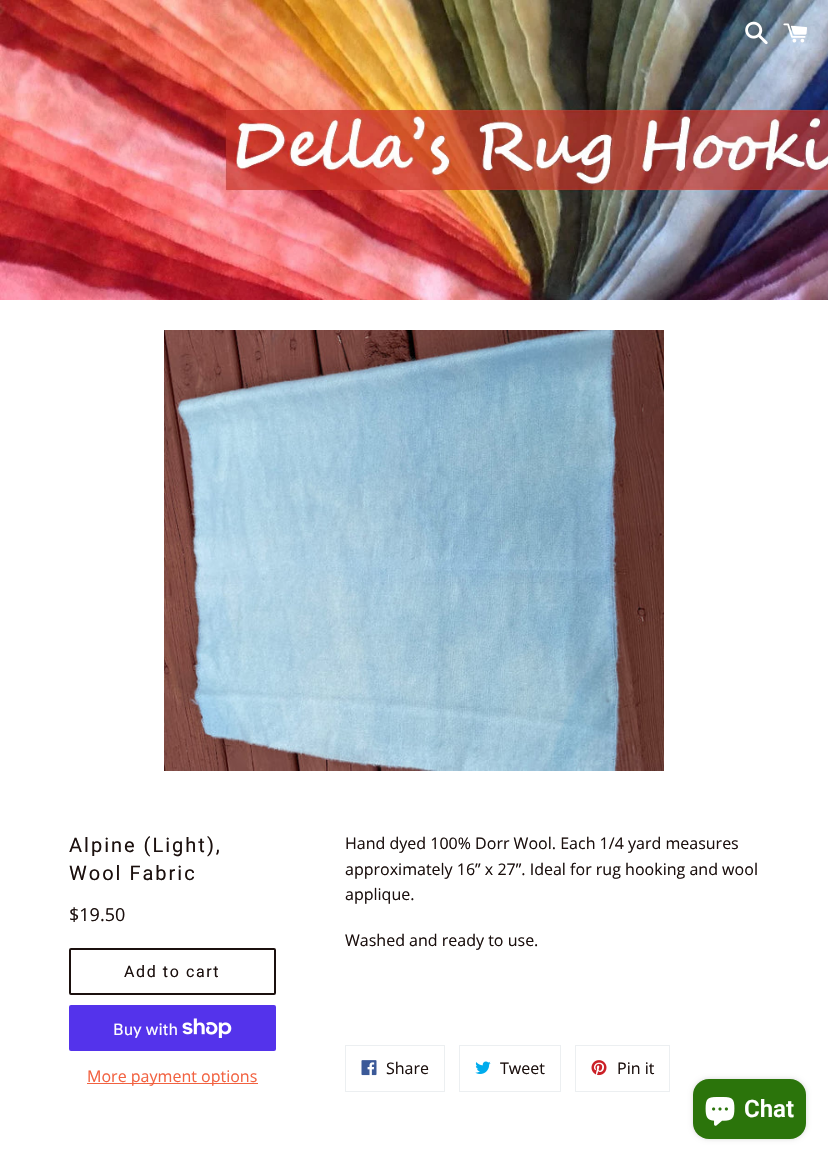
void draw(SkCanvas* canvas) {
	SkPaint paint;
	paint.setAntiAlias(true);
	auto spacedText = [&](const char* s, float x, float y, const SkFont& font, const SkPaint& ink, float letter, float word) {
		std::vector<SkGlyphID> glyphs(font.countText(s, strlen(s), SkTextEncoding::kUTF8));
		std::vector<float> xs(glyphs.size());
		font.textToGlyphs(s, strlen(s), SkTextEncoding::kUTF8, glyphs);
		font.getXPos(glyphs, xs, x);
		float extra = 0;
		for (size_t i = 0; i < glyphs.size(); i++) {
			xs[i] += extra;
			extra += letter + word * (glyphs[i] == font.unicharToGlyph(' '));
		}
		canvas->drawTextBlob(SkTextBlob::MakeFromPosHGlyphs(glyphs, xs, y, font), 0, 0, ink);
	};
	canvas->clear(0xffffffff);
	canvas->drawImageRect(SkImages::DeferredFromEncodedData(SkData::MakeFromFileName("img1.png")), SkRect::MakeXYWH(0, 0, 828, 300), SkSamplingOptions());
	canvas->drawImageRect(SkImages::DeferredFromEncodedData(SkData::MakeFromFileName("img2.png")), SkRect::MakeXYWH(745, 21, 23, 24), SkSamplingOptions());
	canvas->drawImageRect(SkImages::DeferredFromEncodedData(SkData::MakeFromFileName("img3.png")), SkRect::MakeXYWH(783, 23, 24, 20), SkSamplingOptions());
	canvas->drawImageRect(SkImages::DeferredFromEncodedData(SkData::MakeFromFileName("img4.png")), SkRect::MakeXYWH(164, 330, 500, 441), SkSamplingOptions());
	SkFont f1(fontMgr->matchFamilyStyle("Roboto", SkFontStyle::Normal()), 20);
	f1.setSubpixel(true);
	paint.setColor(0xff1b100e);
	spacedText("Alpine (Light),", 69, 852, f1, paint, 2, 0);
	spacedText("Wool Fabric", 69, 880, f1, paint, 2, 0);
	SkFont f2(fontMgr->matchFamilyStyle("Open Sans", SkFontStyle::Normal()), 18);
	f2.setSubpixel(true);
	canvas->drawString("$19.50", 69, 921, f2, paint);
	paint.setStroke(true);
	paint.setStrokeWidth(2);
	canvas->drawRoundRect(SkRect::MakeXYWH(70, 949, 205, 45), 1, 1, paint);
	SkFont f3(fontMgr->matchFamilyStyle("Roboto", SkFontStyle::Normal()), 16);
	f3.setSubpixel(true);
	paint.setStroke(false);
	spacedText("Add to cart", 124, 977, f3, paint, 1.6, 0);
	paint.setColor(0xff5433eb);
	canvas->drawRoundRect(SkRect::MakeXYWH(69, 1005, 207, 46), 2, 2, paint);
	SkFont f4(fontMgr->matchFamilyStyle("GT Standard", SkFontStyle::Normal()), 16);
	f4.setSubpixel(true);
	paint.setColor(0xffffffff);
	canvas->drawString("Buy with", 113, 1035, f4, paint);
	canvas->drawImageRect(SkImages::DeferredFromEncodedData(SkData::MakeFromFileName("img5.png")), SkRect::MakeXYWH(182, 1018, 50, 20), SkSamplingOptions());
	paint.setColor(0xfff26241);
	canvas->drawRect(SkRect::MakeXYWH(87, 1083, 171, 1), paint);
	SkFont f5(fontMgr->matchFamilyStyle("Open Sans", SkFontStyle::Normal()), 16);
	f5.setSubpixel(true);
	canvas->drawString("More payment options", 87, 1082, f5, paint);
	paint.setColor(0xff1b100e);
	canvas->drawString("Hand dyed 100% Dorr Wool. Each 1/4 yard measures", 345, 849, f5, paint);
	canvas->drawString("approximately 16” x 27”. Ideal for rug hooking and wool", 345, 875, f5, paint);
	canvas->drawString("applique.", 345, 900, f5, paint);
	canvas->drawString("Washed and ready to use.", 345, 946, f5, paint);
	paint.setStroke(true);
	paint.setStrokeWidth(1);
	paint.setColor(0xffeceff1);
	canvas->drawRect(SkRect::MakeXYWH(345.5, 1045.5, 99, 46), paint);
	canvas->drawImageRect(SkImages::DeferredFromEncodedData(SkData::MakeFromFileName("img6.png")), SkRect::MakeXYWH(361, 1060, 16, 16), SkSamplingOptions());
	paint.setStroke(false);
	paint.setColor(0xff1b100e);
	canvas->drawString("Share", 386, 1074, f5, paint);
	paint.setStroke(true);
	paint.setColor(0xffeceff1);
	canvas->drawRect(SkRect::MakeXYWH(459.5, 1045.5, 101, 46), paint);
	canvas->drawImageRect(SkImages::DeferredFromEncodedData(SkData::MakeFromFileName("img7.png")), SkRect::MakeXYWH(475, 1061, 16, 13), SkSamplingOptions());
	paint.setStroke(false);
	paint.setColor(0xff1b100e);
	canvas->drawString("Tweet", 500, 1074, f5, paint);
	paint.setStroke(true);
	paint.setColor(0xffeceff1);
	canvas->drawRect(SkRect::MakeXYWH(575.5, 1045.5, 94, 46), paint);
	canvas->drawImageRect(SkImages::DeferredFromEncodedData(SkData::MakeFromFileName("img8.png")), SkRect::MakeXYWH(591, 1060, 16, 16), SkSamplingOptions());
	paint.setStroke(false);
	paint.setColor(0xff1b100e);
	canvas->drawString("Pin it", 617, 1074, f5, paint);
	paint.setColor(0x26000000);
	paint.setMaskFilter(SkMaskFilter::MakeBlur(kNormal_SkBlurStyle, 2.5));
	canvas->drawRoundRect(SkRect::MakeXYWH(693, 1079, 113, 60), 16, 16, paint);
	paint.setMaskFilter(nullptr);
	paint.setColor(0xff2b740b);
	canvas->drawRoundRect(SkRect::MakeXYWH(693, 1079, 113, 60), 16, 16, paint);
	canvas->drawImageRect(SkImages::DeferredFromEncodedData(SkData::MakeFromFileName("img9.png")), SkRect::MakeXYWH(705, 1097, 30, 29), SkSamplingOptions());
	SkFont f6(fontMgr->matchFamilyStyle("Roboto", SkFontStyle(600, SkFontStyle::kNormal_Width, SkFontStyle::kUpright_Slant)), 24);
	f6.setSubpixel(true);
	paint.setColor(0xffffffff);
	canvas->drawString("Chat", 744, 1117, f6, paint);
}
